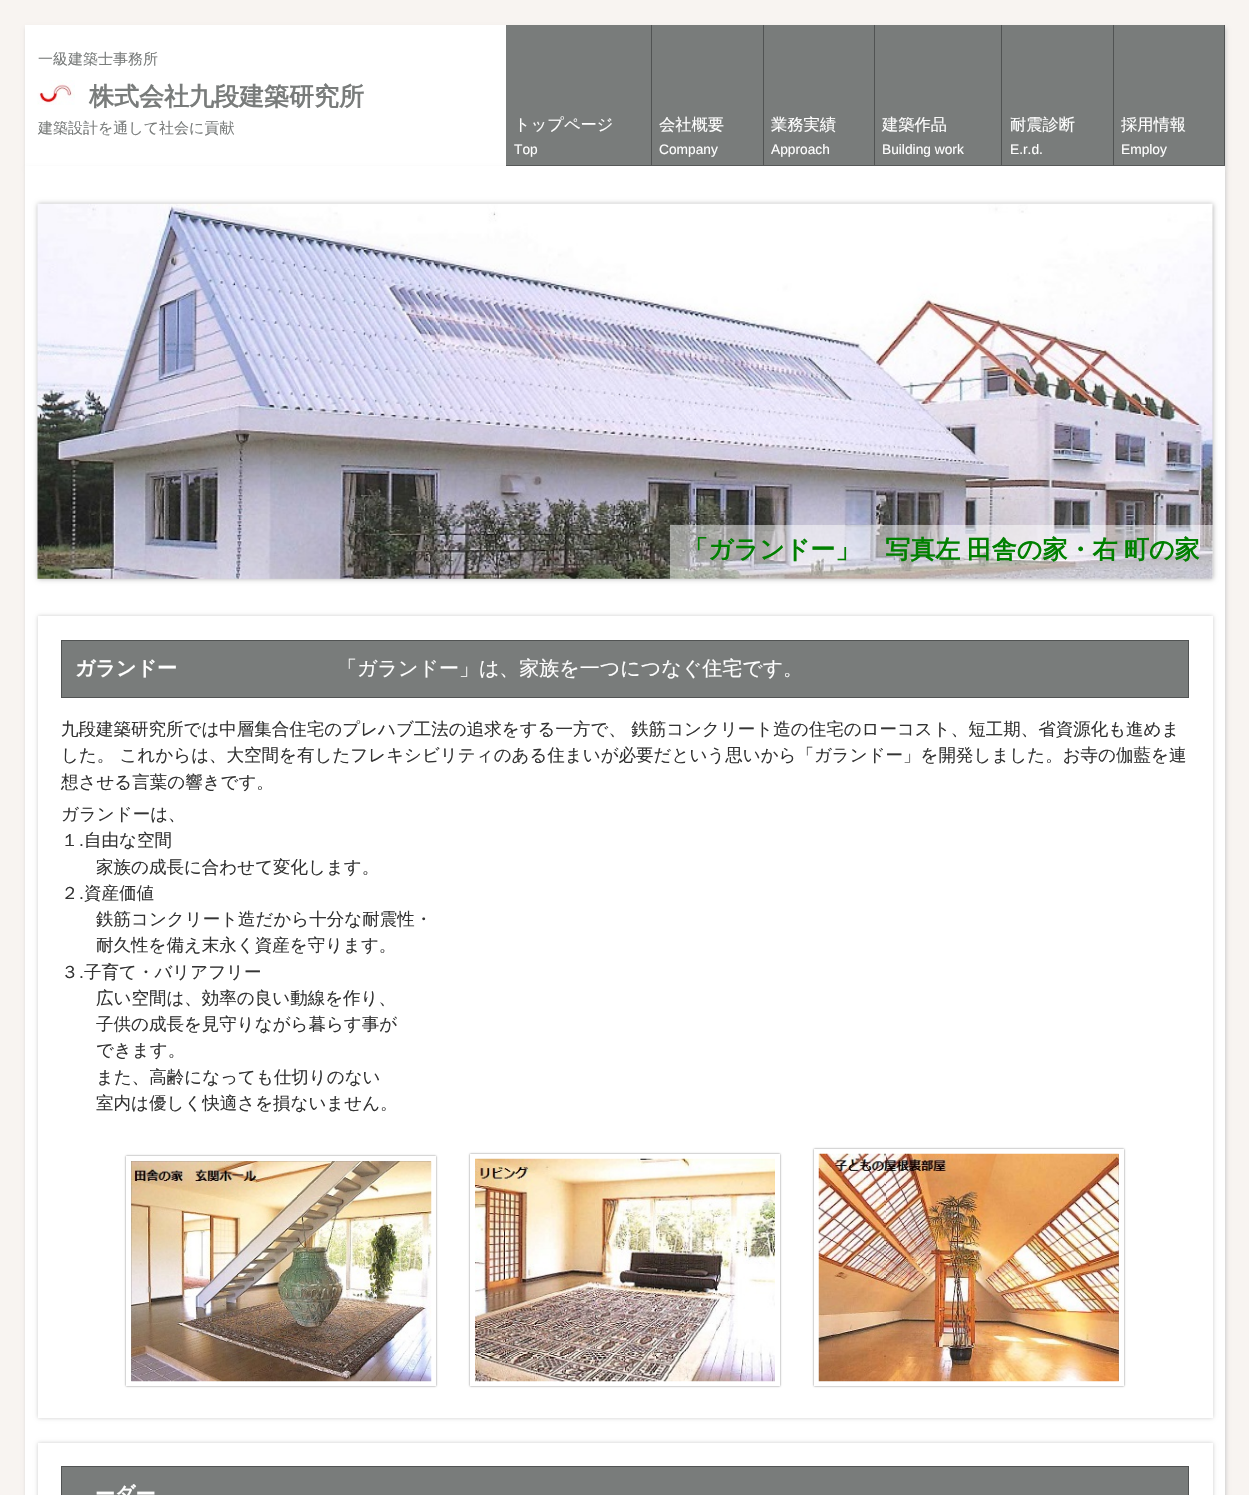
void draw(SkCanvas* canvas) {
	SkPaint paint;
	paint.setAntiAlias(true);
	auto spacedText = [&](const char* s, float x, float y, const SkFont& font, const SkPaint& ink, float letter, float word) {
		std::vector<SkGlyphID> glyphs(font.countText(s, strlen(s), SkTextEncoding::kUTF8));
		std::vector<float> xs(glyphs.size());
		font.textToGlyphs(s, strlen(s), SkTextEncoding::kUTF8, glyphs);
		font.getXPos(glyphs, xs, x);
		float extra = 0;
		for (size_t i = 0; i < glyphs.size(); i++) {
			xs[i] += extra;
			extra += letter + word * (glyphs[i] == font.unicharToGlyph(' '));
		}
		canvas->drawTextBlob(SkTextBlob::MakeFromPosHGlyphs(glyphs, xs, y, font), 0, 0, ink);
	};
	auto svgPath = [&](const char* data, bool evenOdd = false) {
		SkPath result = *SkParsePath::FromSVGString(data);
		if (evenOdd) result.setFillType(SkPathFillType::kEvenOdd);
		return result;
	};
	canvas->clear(0xfff8f4f1);
	paint.setColor(0xffcccccc);
	paint.setMaskFilter(SkMaskFilter::MakeBlur(kNormal_SkBlurStyle, 2));
	canvas->drawRect(SkRect::MakeXYWH(26, 28, 1200, 141), paint);
	paint.setMaskFilter(nullptr);
	paint.setColor(0xffffffff);
	canvas->drawRect(SkRect::MakeXYWH(25, 25, 481, 141), paint);
	SkFont f1(fontMgr->matchFamilyStyle("WenQuanYi Zen Hei", SkFontStyle(500, SkFontStyle::kNormal_Width, SkFontStyle::kUpright_Slant)), 15);
	f1.setSubpixel(true);
	paint.setColor(0xff797c7b);
	canvas->drawString("一級建築士事務所", 38, 64, f1, paint);
	canvas->drawImageRect(SkImages::DeferredFromEncodedData(SkData::MakeFromFileName("img1.png")), SkRect::MakeXYWH(37, 80, 38, 25), SkSamplingOptions());
	SkFont f2(fontMgr->matchFamilyStyle("WenQuanYi Zen Hei", SkFontStyle::Bold()), 25);
	f2.setSubpixel(true);
	canvas->drawString("株式会社九段建築研究所", 89, 105, f2, paint);
	canvas->drawString("建築設計を通して社会に貢献", 38, 133, f1, paint);
	canvas->drawRect(SkRect::MakeXYWH(506, 25, 257, 140), paint);
	paint.setColor(0xff515353);
	canvas->drawRect(SkRect::MakeXYWH(651, 25, 1, 141), paint);
	canvas->drawRect(SkRect::MakeXYWH(506, 165, 147, 1), paint);
	SkFont f3(fontMgr->matchFamilyStyle("WenQuanYi Zen Hei", SkFontStyle(500, SkFontStyle::kNormal_Width, SkFontStyle::kUpright_Slant)), 16.25);
	f3.setSubpixel(true);
	paint.setColor(0xffffffff);
	canvas->drawString("トップページ", 514, 130, f3, paint);
	SkFont f4(fontMgr->matchFamilyStyle("Liberation Sans", SkFontStyle::Normal()), 13.75);
	f4.setSubpixel(true);
	canvas->drawString("Top", 514, 154, f4, paint);
	paint.setColor(0xff515353);
	canvas->drawRect(SkRect::MakeXYWH(763, 25, 1, 141), paint);
	canvas->drawRect(SkRect::MakeXYWH(653, 165, 111, 1), paint);
	paint.setColor(0xffffffff);
	canvas->drawString("会社概要", 659, 130, f3, paint);
	canvas->drawString("Company", 659, 154, f4, paint);
	paint.setColor(0xff797c7b);
	canvas->drawRect(SkRect::MakeXYWH(764, 25, 110, 140), paint);
	paint.setColor(0xff515353);
	canvas->drawRect(SkRect::MakeXYWH(874, 25, 1, 141), paint);
	canvas->drawRect(SkRect::MakeXYWH(764, 165, 111, 1), paint);
	paint.setColor(0xffffffff);
	canvas->drawString("業務実績", 771, 130, f3, paint);
	canvas->drawString("Approach", 771, 154, f4, paint);
	paint.setColor(0xff797c7b);
	canvas->drawRect(SkRect::MakeXYWH(875, 25, 238, 140), paint);
	paint.setColor(0xff515353);
	canvas->drawRect(SkRect::MakeXYWH(1001, 25, 1, 141), paint);
	canvas->drawRect(SkRect::MakeXYWH(875, 165, 128, 1), paint);
	paint.setColor(0xffffffff);
	canvas->drawString("建築作品", 882, 130, f3, paint);
	canvas->drawString("Building work", 882, 154, f4, paint);
	paint.setColor(0xff515353);
	canvas->drawRect(SkRect::MakeXYWH(1113, 25, 1, 141), paint);
	canvas->drawRect(SkRect::MakeXYWH(1003, 165, 111, 1), paint);
	paint.setColor(0xffffffff);
	canvas->drawString("耐震診断", 1010, 130, f3, paint);
	canvas->drawString("E.r.d.", 1010, 154, f4, paint);
	paint.setColor(0xff797c7b);
	canvas->drawRect(SkRect::MakeXYWH(1114, 25, 110, 140), paint);
	paint.setColor(0xff515353);
	canvas->drawRect(SkRect::MakeXYWH(1224, 25, 1, 141), paint);
	canvas->drawRect(SkRect::MakeXYWH(1114, 165, 111, 1), paint);
	paint.setColor(0xffffffff);
	canvas->drawString("採用情報", 1121, 130, f3, paint);
	canvas->drawString("Employ", 1121, 154, f4, paint);
	paint.setColor(0xffcccccc);
	paint.setMaskFilter(SkMaskFilter::MakeBlur(kNormal_SkBlurStyle, 2));
	canvas->drawRect(SkRect::MakeXYWH(26, 169, 1200, 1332), paint);
	paint.setMaskFilter(nullptr);
	paint.setColor(0xffffffff);
	canvas->drawRect(SkRect::MakeXYWH(25, 166, 1200, 1329), paint);
	paint.setColor(0x4d000000);
	paint.setMaskFilter(SkMaskFilter::MakeBlur(kNormal_SkBlurStyle, 2.5));
	canvas->drawRect(SkRect::MakeXYWH(38, 204, 1175, 375), paint);
	paint.setMaskFilter(nullptr);
	canvas->drawImageRect(SkImages::DeferredFromEncodedData(SkData::MakeFromFileName("img2.png")), SkRect::MakeXYWH(37, 203, 1176, 376), SkSamplingOptions());
	paint.setColor(0x80ffffff);
	canvas->drawRect(SkRect::MakeXYWH(670, 525, 543, 54), paint);
	paint.setColor(0xff008000);
	spacedText("「ガランドー」　写真左 田舎の家・右 町の家", 683, 558, f2, paint, 0, -1);
	paint.setColor(0x33000000);
	paint.setMaskFilter(SkMaskFilter::MakeBlur(kNormal_SkBlurStyle, 2));
	canvas->drawRect(SkRect::MakeXYWH(38, 616, 1175, 802), paint);
	paint.setMaskFilter(nullptr);
	paint.setColor(0xffffffff);
	canvas->drawRect(SkRect::MakeXYWH(38, 616, 1175, 802), paint);
	paint.setColor(0xff797c7b);
	canvas->drawRect(SkRect::MakeXYWH(61.5, 640.5, 1127, 57), paint);
	paint.setStroke(true);
	paint.setStrokeWidth(1);
	paint.setColor(0xff515353);
	canvas->drawRect(SkRect::MakeXYWH(61.5, 640.5, 1127, 57), paint);
	SkFont f5(fontMgr->matchFamilyStyle("WenQuanYi Zen Hei", SkFontStyle::Bold()), 20);
	f5.setSubpixel(true);
	paint.setStroke(false);
	paint.setColor(0xffffffff);
	canvas->drawString("ガランドー", 75, 675, f5, paint);
	SkFont f6(fontMgr->matchFamilyStyle("WenQuanYi Zen Hei", SkFontStyle(500, SkFontStyle::kNormal_Width, SkFontStyle::kUpright_Slant)), 20);
	f6.setSubpixel(true);
	canvas->drawString("「ガランドー」は、家族を一つにつなぐ住宅です。", 337, 675, f6, paint);
	SkFont f7(fontMgr->matchFamilyStyle("WenQuanYi Zen Hei", SkFontStyle(500, SkFontStyle::kNormal_Width, SkFontStyle::kUpright_Slant)), 17.5);
	f7.setSubpixel(true);
	paint.setColor(0xff333333);
	canvas->drawString("九段建築研究所では中層集合住宅のプレハブ工法の追求をする一方で、 鉄筋コンクリート造の住宅のローコスト、短工期、省資源化も進めま", 61, 735, f7, paint);
	canvas->drawString("した。 これからは、大空間を有したフレキシビリティのある住まいが必要だという思いから「ガランドー」を開発しました。お寺の伽藍を連", 61, 761, f7, paint);
	canvas->drawString("想させる言葉の響きです。", 61, 788, f7, paint);
	canvas->drawString("ガランドーは、", 61, 820, f7, paint);
	canvas->drawString("１", 61, 846, f7, paint);
	SkFont f8(fontMgr->matchFamilyStyle("Liberation Sans", SkFontStyle::Normal()), 17.5);
	f8.setSubpixel(true);
	canvas->drawString(".", 79, 846, f8, paint);
	canvas->drawString("自由な空間", 84, 846, f7, paint);
	canvas->drawString("家族の成長に合わせて変化します。", 96, 873, f7, paint);
	canvas->drawString("２", 61, 899, f7, paint);
	canvas->drawString(".", 79, 899, f8, paint);
	canvas->drawString("資産価値", 84, 899, f7, paint);
	canvas->drawString("鉄筋コンクリート造だから十分な耐震性・", 96, 925, f7, paint);
	canvas->drawString("耐久性を備え末永く資産を守ります。", 96, 951, f7, paint);
	canvas->drawString("３", 61, 978, f7, paint);
	canvas->drawString(".", 79, 978, f8, paint);
	canvas->drawString("子育て・バリアフリー", 84, 978, f7, paint);
	canvas->drawString("広い空間は、効率の良い動線を作り、", 96, 1004, f7, paint);
	canvas->drawString("子供の成長を見守りながら暮らす事が", 96, 1030, f7, paint);
	canvas->drawString("できます。", 96, 1056, f7, paint);
	canvas->drawString("また、高齢になっても仕切りのない", 96, 1083, f7, paint);
	canvas->drawString("室内は優しく快適さを損ないません。", 96, 1109, f7, paint);
	paint.setColor(0x80000000);
	paint.setMaskFilter(SkMaskFilter::MakeBlur(kNormal_SkBlurStyle, 1));
	canvas->drawRect(SkRect::MakeXYWH(814, 1149, 310, 237), paint);
	paint.setMaskFilter(nullptr);
	paint.setMaskFilter(SkMaskFilter::MakeBlur(kNormal_SkBlurStyle, 1));
	canvas->drawRect(SkRect::MakeXYWH(126, 1156, 310, 230), paint);
	paint.setMaskFilter(nullptr);
	canvas->save();
	canvas->clipPath(svgPath("M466 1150H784V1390H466ZM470 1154H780V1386H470Z", true), true);
	paint.setMaskFilter(SkMaskFilter::MakeBlur(kNormal_SkBlurStyle, 1));
	canvas->drawRect(SkRect::MakeXYWH(470, 1154, 310, 232), paint);
	paint.setMaskFilter(nullptr);
	canvas->restore();
	paint.setStroke(true);
	paint.setStrokeWidth(5);
	paint.setColor(0xffffffff);
	canvas->drawRect(SkRect::MakeXYWH(816.5, 1151.5, 305, 232), paint);
	canvas->drawRect(SkRect::MakeXYWH(128.5, 1158.5, 305, 225), paint);
	canvas->drawImageRect(SkImages::DeferredFromEncodedData(SkData::MakeFromFileName("img3.png")), SkRect::MakeXYWH(475, 1158, 300, 224), SkSamplingOptions());
	canvas->drawImageRect(SkImages::DeferredFromEncodedData(SkData::MakeFromFileName("img4.png")), SkRect::MakeXYWH(818, 1153, 301, 229), SkSamplingOptions());
	canvas->drawImageRect(SkImages::DeferredFromEncodedData(SkData::MakeFromFileName("img5.png")), SkRect::MakeXYWH(131, 1161, 301, 221), SkSamplingOptions());
	paint.setStroke(false);
	paint.setColor(0x33000000);
	paint.setMaskFilter(SkMaskFilter::MakeBlur(kNormal_SkBlurStyle, 2));
	canvas->drawRect(SkRect::MakeXYWH(38, 1443, 1175, 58), paint);
	paint.setMaskFilter(nullptr);
	paint.setColor(0xffffffff);
	canvas->drawRect(SkRect::MakeXYWH(38, 1443, 1175, 52), paint);
	paint.setColor(0xff797c7b);
	canvas->drawRect(SkRect::MakeXYWH(61.5, 1466.5, 1127, 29), paint);
	paint.setStroke(true);
	paint.setStrokeWidth(1);
	paint.setColor(0xff515353);
	canvas->drawRect(SkRect::MakeXYWH(61.5, 1466.5, 1127, 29), paint);
	paint.setStroke(false);
	paint.setColor(0xffffffff);
	canvas->drawString("ーダー", 95, 1501, f5, paint);
}
